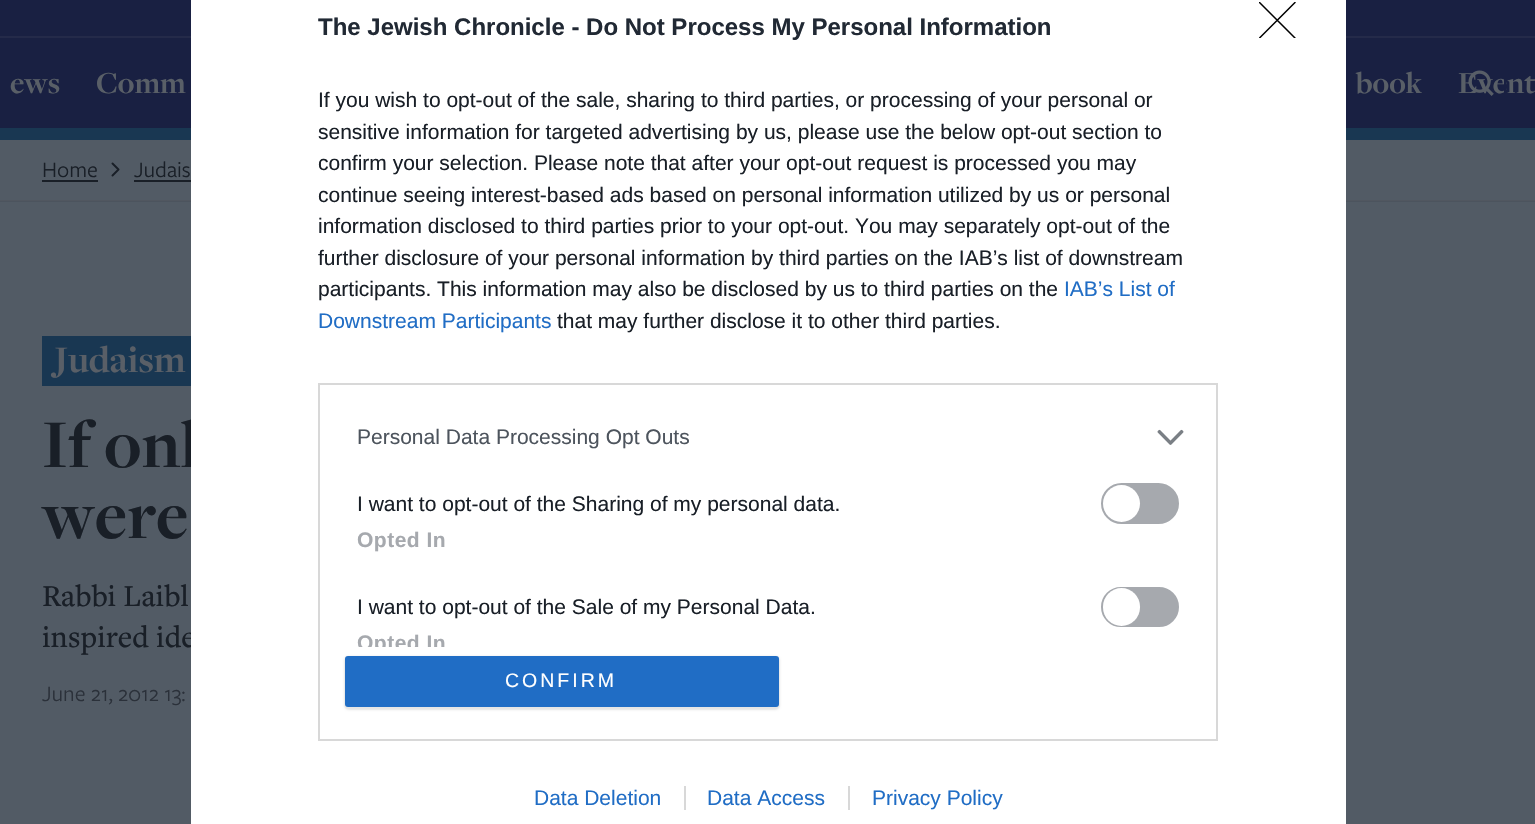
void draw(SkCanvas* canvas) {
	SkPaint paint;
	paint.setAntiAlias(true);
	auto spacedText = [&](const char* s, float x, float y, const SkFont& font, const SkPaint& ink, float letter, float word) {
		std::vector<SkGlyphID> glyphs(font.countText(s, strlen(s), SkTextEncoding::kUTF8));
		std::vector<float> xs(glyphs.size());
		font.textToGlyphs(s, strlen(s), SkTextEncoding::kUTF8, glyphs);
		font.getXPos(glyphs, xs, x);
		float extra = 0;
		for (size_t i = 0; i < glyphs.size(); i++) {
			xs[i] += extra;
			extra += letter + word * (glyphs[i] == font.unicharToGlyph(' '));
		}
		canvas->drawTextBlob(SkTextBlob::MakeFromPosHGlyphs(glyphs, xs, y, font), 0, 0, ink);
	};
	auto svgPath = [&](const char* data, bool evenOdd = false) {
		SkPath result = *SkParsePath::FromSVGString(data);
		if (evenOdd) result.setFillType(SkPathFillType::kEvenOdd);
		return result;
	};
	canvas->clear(0xff525b65);
	paint.setColor(0xff192042);
	canvas->drawRect(SkRect::MakeXYWH(0, 0, 1535, 36), paint);
	canvas->drawRect(SkRect::MakeXYWH(0, 38, 1535, 90), paint);
	paint.setColor(0xff242a49);
	canvas->drawRect(SkRect::MakeXYWH(0, 36, 1535, 2), paint);
	paint.setColor(0xff193752);
	canvas->drawRect(SkRect::MakeXYWH(0, 128, 1535, 12), paint);
	paint.setColor(0xff515760);
	canvas->drawRect(SkRect::MakeXYWH(0, 200, 1535, 1), paint);
	paint.setColor(0xff4c545e);
	canvas->drawRect(SkRect::MakeXYWH(0, 201, 1535, 1), paint);
	SkFont f1(fontMgr->matchFamilyStyle("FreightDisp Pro", SkFontStyle::Bold()), 71);
	f1.setSubpixel(true);
	paint.setColor(0xff191f27);
	canvas->drawString("If onl", 42, 467, f1, paint);
	SkFont f2(fontMgr->matchFamilyStyle("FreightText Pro", SkFontStyle(500, SkFontStyle::kNormal_Width, SkFontStyle::kUpright_Slant)), 31.5);
	f2.setSubpixel(true);
	canvas->drawString("inspired ide", 42, 647, f2, paint);
	paint.setColor(0xffffffff);
	canvas->drawRect(SkRect::MakeXYWH(191, 0, 1155, 824), paint);
	SkFont f3(fontMgr->matchFamilyStyle("Liberation Sans", SkFontStyle::Bold()), 24);
	f3.setSubpixel(true);
	paint.setColor(0xff212934);
	canvas->drawString("The Jewish Chronicle - Do Not Process My Personal Information", 318, 35, f3, paint);
	SkFont f4(fontMgr->matchFamilyStyle("Liberation Sans", SkFontStyle::Normal()), 21);
	f4.setSubpixel(true);
	paint.setColor(0xff191f27);
	canvas->drawString("If you wish to opt-out of the sale, sharing to third parties, or processing of your personal or", 318, 107, f4, paint);
	canvas->drawString("sensitive information for targeted advertising by us, please use the below opt-out section to", 318, 139, f4, paint);
	canvas->drawString("confirm your selection. Please note that after your opt-out request is processed you may", 318, 170, f4, paint);
	canvas->drawString("continue seeing interest-based ads based on personal information utilized by us or personal", 318, 202, f4, paint);
	canvas->drawString("information disclosed to third parties prior to your opt-out. You may separately opt-out of the", 318, 233, f4, paint);
	canvas->drawString("further disclosure of your personal information by third parties on the IAB’s list of downstream", 318, 265, f4, paint);
	canvas->drawString("participants. This information may also be disclosed by us to third parties on the", 318, 296, f4, paint);
	paint.setColor(0xff206dc5);
	canvas->drawString("IAB’s List of", 1064, 296, f4, paint);
	canvas->drawString("Downstream Participants", 318, 328, f4, paint);
	paint.setColor(0xff191f27);
	canvas->drawString("that may further disclose it to other third parties.", 557, 328, f4, paint);
	paint.setStroke(true);
	paint.setStrokeWidth(2);
	paint.setColor(0xffd8d8d8);
	canvas->drawRect(SkRect::MakeXYWH(319, 384, 898, 356), paint);
	paint.setStroke(false);
	paint.setColor(0xff4d545d);
	canvas->drawString("Personal Data Processing Opt Outs", 357, 444, f4, paint);
	canvas->drawImageRect(SkImages::DeferredFromEncodedData(SkData::MakeFromFileName("img1.png")), SkRect::MakeXYWH(1157, 429, 27, 16), SkSamplingOptions());
	paint.setColor(0xff191f27);
	canvas->drawString("I want to opt-out of the Sharing of my personal data.", 357, 511, f4, paint);
	paint.setColor(0xffa6a9ae);
	canvas->drawRoundRect(SkRect::MakeXYWH(1102, 484, 76, 39), 19.5, 19.5, paint);
	paint.setStroke(true);
	canvas->drawRoundRect(SkRect::MakeXYWH(1102, 484, 76, 39), 19.5, 19.5, paint);
	paint.setStroke(false);
	paint.setColor(0xffffffff);
	canvas->drawCircle(1121.5, 503.5, 18.5, paint);
	SkFont f5(fontMgr->matchFamilyStyle("Liberation Sans", SkFontStyle::Bold()), 21);
	f5.setSubpixel(true);
	paint.setColor(0xffa6a9ae);
	spacedText("Opted In", 357, 547, f5, paint, 0.5, 0);
	paint.setColor(0xff191f27);
	canvas->drawString("I want to opt-out of the Sale of my Personal Data.", 357, 614, f4, paint);
	paint.setColor(0xffa6a9ae);
	canvas->drawRoundRect(SkRect::MakeXYWH(1102, 588, 76, 38), 19, 19, paint);
	paint.setStroke(true);
	canvas->drawRoundRect(SkRect::MakeXYWH(1102, 588, 76, 38), 19, 19, paint);
	paint.setStroke(false);
	paint.setColor(0xffffffff);
	canvas->drawRoundRect(SkRect::MakeXYWH(1103, 588, 37, 38), 18.5, 18.5, paint);
	canvas->save();
	canvas->clipRect(SkRect::MakeXYWH(335, 399, 867, 248));
	paint.setColor(0xffa6a9ae);
	spacedText("Opted In", 357, 650, f5, paint, 0.5, 0);
	canvas->restore();
	paint.setColor(0x1a000000);
	paint.setMaskFilter(SkMaskFilter::MakeBlur(kNormal_SkBlurStyle, 1));
	canvas->drawRoundRect(SkRect::MakeXYWH(344, 656, 436, 54), 5, 5, paint);
	paint.setMaskFilter(nullptr);
	paint.setColor(0xff206dc5);
	canvas->drawRoundRect(SkRect::MakeXYWH(345, 656, 434, 51), 3, 3, paint);
	SkFont f6(fontMgr->matchFamilyStyle("Liberation Sans", SkFontStyle::Normal()), 19.5);
	f6.setSubpixel(true);
	paint.setColor(0xffffffff);
	spacedText("CONFIRM", 505, 687, f6, paint, 3, 0);
	canvas->save();
	canvas->clipRect(SkRect::MakeXYWH(1259, 2, 37, 36));
	paint.setStroke(true);
	paint.setStrokeWidth(1.5);
	paint.setStrokeCap(SkPaint::kRound_Cap);
	paint.setStrokeJoin(SkPaint::kRound_Join);
	paint.setColor(0xff000000);
	canvas->drawPath(svgPath("M1259.5 2.5L1295 38M1295 2.5L1259.5 38"), paint);
	canvas->restore();
	paint.setStroke(false);
	paint.setColor(0xff206dc5);
	canvas->drawString("Data Deletion", 534, 805, f4, paint);
	canvas->drawString("Data Access", 707, 805, f4, paint);
	paint.setColor(0xffd8d8d8);
	canvas->drawRect(SkRect::MakeXYWH(684, 786, 2, 24), paint);
	paint.setColor(0xff206dc5);
	canvas->drawString("Privacy Policy", 872, 805, f4, paint);
	paint.setColor(0xffd8d8d8);
	canvas->drawRect(SkRect::MakeXYWH(848, 786, 2, 24), paint);
	SkFont f7(fontMgr->matchFamilyStyle("FreightDisp Pro", SkFontStyle::Bold()), 31.5);
	f7.setSubpixel(true);
	paint.setColor(0xff595f67);
	canvas->drawString("Event", 1458, 93, f7, paint);
	paint.setStroke(true);
	paint.setStrokeWidth(2);
	paint.setStrokeCap(SkPaint::kButt_Cap);
	paint.setStrokeJoin(SkPaint::kMiter_Join);
	paint.setColor(0xff192042);
	canvas->drawRoundRect(SkRect::MakeXYWH(1456, 58, 49, 49), 5, 5, paint);
	canvas->drawImageRect(SkImages::DeferredFromEncodedData(SkData::MakeFromFileName("img2.png")), SkRect::MakeXYWH(1468, 70, 26, 26), SkSamplingOptions());
	paint.setStroke(false);
	paint.setColor(0xff595f67);
	canvas->drawString("ews", 10, 93, f7, paint);
	canvas->drawString("Comm", 96, 93, f7, paint);
	canvas->drawString("book", 1356, 93, f7, paint);
	SkFont f8(fontMgr->matchFamilyStyle("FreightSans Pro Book", SkFontStyle::Normal()), 23);
	f8.setSubpixel(true);
	paint.setColor(0xff191f27);
	canvas->drawString("Home", 42, 177, f8, paint);
	canvas->drawRect(SkRect::MakeXYWH(42, 180, 56, 2), paint);
	paint.setStroke(true);
	paint.setStrokeCap(SkPaint::kRound_Cap);
	paint.setStrokeJoin(SkPaint::kRound_Join);
	canvas->drawPath(svgPath("M112.5 175.5L118.5 169.5L112.5 163.5"), paint);
	paint.setStroke(false);
	canvas->drawString("Judais", 134, 177, f8, paint);
	canvas->drawRect(SkRect::MakeXYWH(134, 180, 57, 2), paint);
	paint.setColor(0xff193752);
	canvas->drawRect(SkRect::MakeXYWH(42, 336, 149, 50), paint);
	SkFont f9(fontMgr->matchFamilyStyle("FreightDisp Pro", SkFontStyle::Bold()), 39);
	f9.setSubpixel(true);
	paint.setColor(0xff595f67);
	canvas->drawString("Judaism", 54, 372, f9, paint);
	paint.setColor(0xff191f27);
	canvas->drawString("were", 42, 538, f1, paint);
	canvas->drawString("Rabbi Laibl", 42, 606, f2, paint);
	paint.setColor(0xff2b313a);
	canvas->drawString("June 21, 2012 13:", 42, 701, f8, paint);
}
